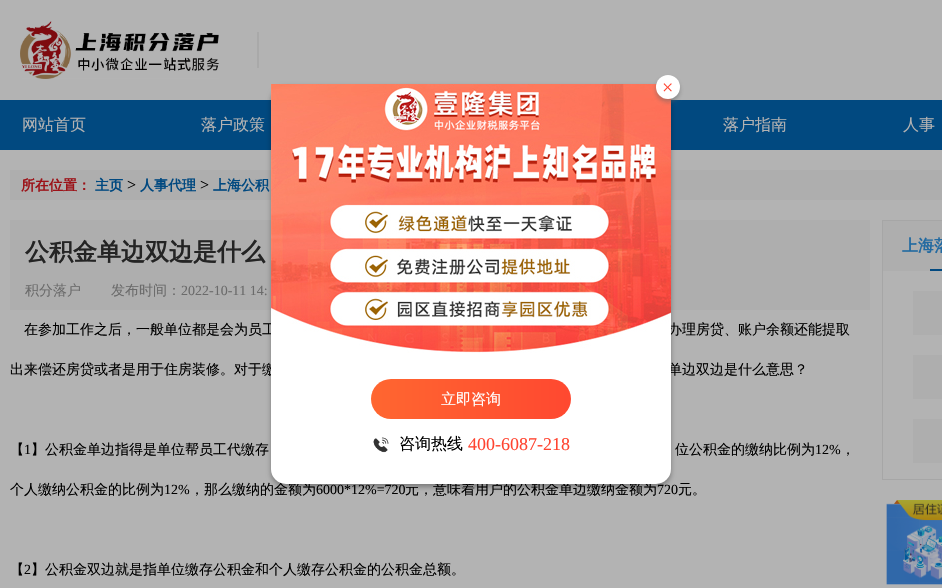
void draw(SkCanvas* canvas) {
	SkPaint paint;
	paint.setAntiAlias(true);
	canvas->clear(0xffb3b3b3);
	canvas->drawImageRect(SkImages::DeferredFromEncodedData(SkData::MakeFromFileName("img1.png")), SkRect::MakeXYWH(20, 21, 199, 58), SkSamplingOptions());
	paint.setColor(0xffa9a9a9);
	canvas->drawRect(SkRect::MakeXYWH(257, 32, 2, 36), paint);
	paint.setColor(0xff014980);
	canvas->drawRect(SkRect::MakeXYWH(0, 100, 942, 50), paint);
	paint.setColor(0xffaeaeae);
	canvas->drawRect(SkRect::MakeXYWH(10, 170, 932, 30), paint);
	canvas->drawRect(SkRect::MakeXYWH(10, 220, 860, 90), paint);
	paint.setColor(0x4f000000);
	paint.setMaskFilter(SkMaskFilter::MakeBlur(kNormal_SkBlurStyle, 2.5));
	canvas->drawRoundRect(SkRect::MakeXYWH(271, 87, 400, 400), 15, 15, paint);
	paint.setMaskFilter(nullptr);
	SkFont f1(fontMgr->matchFamilyStyle("WenQuanYi Zen Hei", SkFontStyle(500, SkFontStyle::kNormal_Width, SkFontStyle::kUpright_Slant)), 14);
	f1.setSubpixel(true);
	paint.setColor(0xff000000);
	canvas->drawString("在参加工作之后，一般单位都是会为员工", 24, 334, f1, paint);
	canvas->drawString("办理房贷、账户余额还能提取", 668, 334, f1, paint);
	canvas->drawString("出来偿还房贷或者是用于住房装修。对于缴", 10, 374, f1, paint);
	canvas->drawString("单边双边是什么意思？", 668, 374, f1, paint);
	canvas->drawString("，那么缴纳的金额为", 190, 494, f1, paint);
	canvas->drawString("元，意味着用户的公积金单边缴纳金额为", 405, 494, f1, paint);
	paint.setColor(0xffffffff);
	canvas->drawRoundRect(SkRect::MakeXYWH(271, 84, 400, 400), 15, 15, paint);
	canvas->drawImageRect(SkImages::DeferredFromEncodedData(SkData::MakeFromFileName("img2.png")), SkRect::MakeXYWH(271, 84, 400, 269), SkSamplingOptions());
	paint.setColor(0x80666666);
	paint.setMaskFilter(SkMaskFilter::MakeBlur(kNormal_SkBlurStyle, 2));
	canvas->drawRoundRect(SkRect::MakeXYWH(656, 78, 24, 24), 12, 12, paint);
	paint.setMaskFilter(nullptr);
	paint.setColor(0xffffffff);
	canvas->drawCircle(668, 87, 12, paint);
	SkFont f2(fontMgr->matchFamilyStyle("Liberation Serif", SkFontStyle::Normal()), 20);
	f2.setSubpixel(true);
	paint.setColor(0xffff4430);
	canvas->drawString("×", 662, 94, f2, paint);
	canvas->drawImageRect(SkImages::DeferredFromEncodedData(SkData::MakeFromFileName("img3.png")), SkRect::MakeXYWH(371, 379, 200, 40), SkSamplingOptions());
	SkFont f3(fontMgr->matchFamilyStyle("WenQuanYi Zen Hei", SkFontStyle(500, SkFontStyle::kNormal_Width, SkFontStyle::kUpright_Slant)), 15);
	f3.setSubpixel(true);
	paint.setColor(0xffffffff);
	canvas->drawString("立即咨询", 441, 404, f3, paint);
	canvas->drawImageRect(SkImages::DeferredFromEncodedData(SkData::MakeFromFileName("img4.png")), SkRect::MakeXYWH(373, 437, 16, 16), SkSamplingOptions());
	SkFont f4(fontMgr->matchFamilyStyle("WenQuanYi Zen Hei", SkFontStyle(500, SkFontStyle::kNormal_Width, SkFontStyle::kUpright_Slant)), 16);
	f4.setSubpixel(true);
	paint.setColor(0xff000000);
	canvas->drawString("咨询热线", 399, 449, f4, paint);
	SkFont f5(fontMgr->matchFamilyStyle("Liberation Serif", SkFontStyle::Normal()), 18);
	f5.setSubpixel(true);
	paint.setColor(0xffff4430);
	canvas->drawString("400-6087-218", 468, 450, f5, paint);
	paint.setColor(0xffb3b2b2);
	canvas->drawString("网站首页", 22, 130, f4, paint);
	canvas->drawString("落户政策", 201, 130, f4, paint);
	canvas->drawString("落户指南", 723, 130, f4, paint);
	canvas->drawString("人事", 903, 130, f4, paint);
	SkFont f6(fontMgr->matchFamilyStyle("WenQuanYi Zen Hei", SkFontStyle::Bold()), 14);
	f6.setSubpixel(true);
	paint.setColor(0xff9c1218);
	canvas->drawString("所在位置：", 21, 190, f6, paint);
	paint.setColor(0xff014980);
	canvas->drawString("主页", 95, 190, f6, paint);
	SkFont f7(fontMgr->matchFamilyStyle("Liberation Serif", SkFontStyle::Normal()), 16);
	f7.setSubpixel(true);
	paint.setColor(0xff000000);
	canvas->drawString(">", 127, 190, f7, paint);
	paint.setColor(0xff014980);
	canvas->drawString("人事代理", 140, 190, f6, paint);
	paint.setColor(0xff000000);
	canvas->drawString(">", 200, 190, f7, paint);
	paint.setColor(0xff014980);
	canvas->drawString("上海公积", 213, 190, f6, paint);
	SkFont f8(fontMgr->matchFamilyStyle("WenQuanYi Zen Hei", SkFontStyle::Bold()), 24);
	f8.setSubpixel(true);
	paint.setColor(0xff242424);
	canvas->drawString("公积金单边双边是什么", 25, 260, f8, paint);
	paint.setColor(0xff6b6b6b);
	canvas->drawString("积分落户", 25, 295, f1, paint);
	canvas->drawString("发布时间：", 111, 295, f1, paint);
	SkFont f9(fontMgr->matchFamilyStyle("Liberation Serif", SkFontStyle::Normal()), 14);
	f9.setSubpixel(true);
	canvas->drawString("2022-10-11 14:", 181, 295, f9, paint);
	paint.setColor(0xff000000);
	canvas->drawString("【", 10, 454, f1, paint);
	canvas->drawString("1", 24, 454, f9, paint);
	canvas->drawString("】公积金单边指得是单位帮员工代缴存", 31, 454, f1, paint);
	canvas->drawString("位公积金的缴纳比例为", 675, 454, f1, paint);
	canvas->drawString("12%", 815, 454, f9, paint);
	canvas->drawString("，", 841, 454, f1, paint);
	canvas->drawString("个人缴纳公积金的比例为", 10, 494, f1, paint);
	canvas->drawString("12%", 164, 494, f9, paint);
	canvas->drawString("6000*12%=720", 316, 494, f9, paint);
	canvas->drawString("720", 657, 494, f9, paint);
	canvas->drawString("元。", 678, 494, f1, paint);
	canvas->drawString("【", 10, 574, f1, paint);
	canvas->drawString("2", 24, 574, f9, paint);
	canvas->drawString("】公积金双边就是指单位缴存公积金和个人缴存公积金的公积金总额。", 31, 574, f1, paint);
	paint.setStroke(true);
	paint.setStrokeWidth(1);
	paint.setColor(0xffa6a6a6);
	canvas->drawRect(SkRect::MakeXYWH(882.5, 220.5, 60, 259), paint);
	paint.setStroke(false);
	paint.setColor(0xffaeaeae);
	canvas->drawRect(SkRect::MakeXYWH(883, 221, 59, 50), paint);
	SkFont f10(fontMgr->matchFamilyStyle("WenQuanYi Zen Hei", SkFontStyle::Bold()), 16);
	f10.setSubpixel(true);
	paint.setColor(0xff226aa1);
	canvas->drawString("上海落", 902, 251, f10, paint);
	paint.setColor(0xff014980);
	canvas->drawRect(SkRect::MakeXYWH(930, 269, 12, 2), paint);
	paint.setColor(0xffaeaeae);
	canvas->drawRect(SkRect::MakeXYWH(913, 291, 29, 44), paint);
	canvas->drawRect(SkRect::MakeXYWH(913, 355, 29, 44), paint);
	canvas->drawRect(SkRect::MakeXYWH(913, 419, 29, 44), paint);
	canvas->drawImageRect(SkImages::DeferredFromEncodedData(SkData::MakeFromFileName("img5.png")), SkRect::MakeXYWH(886, 500, 56, 85), SkSamplingOptions());
}
